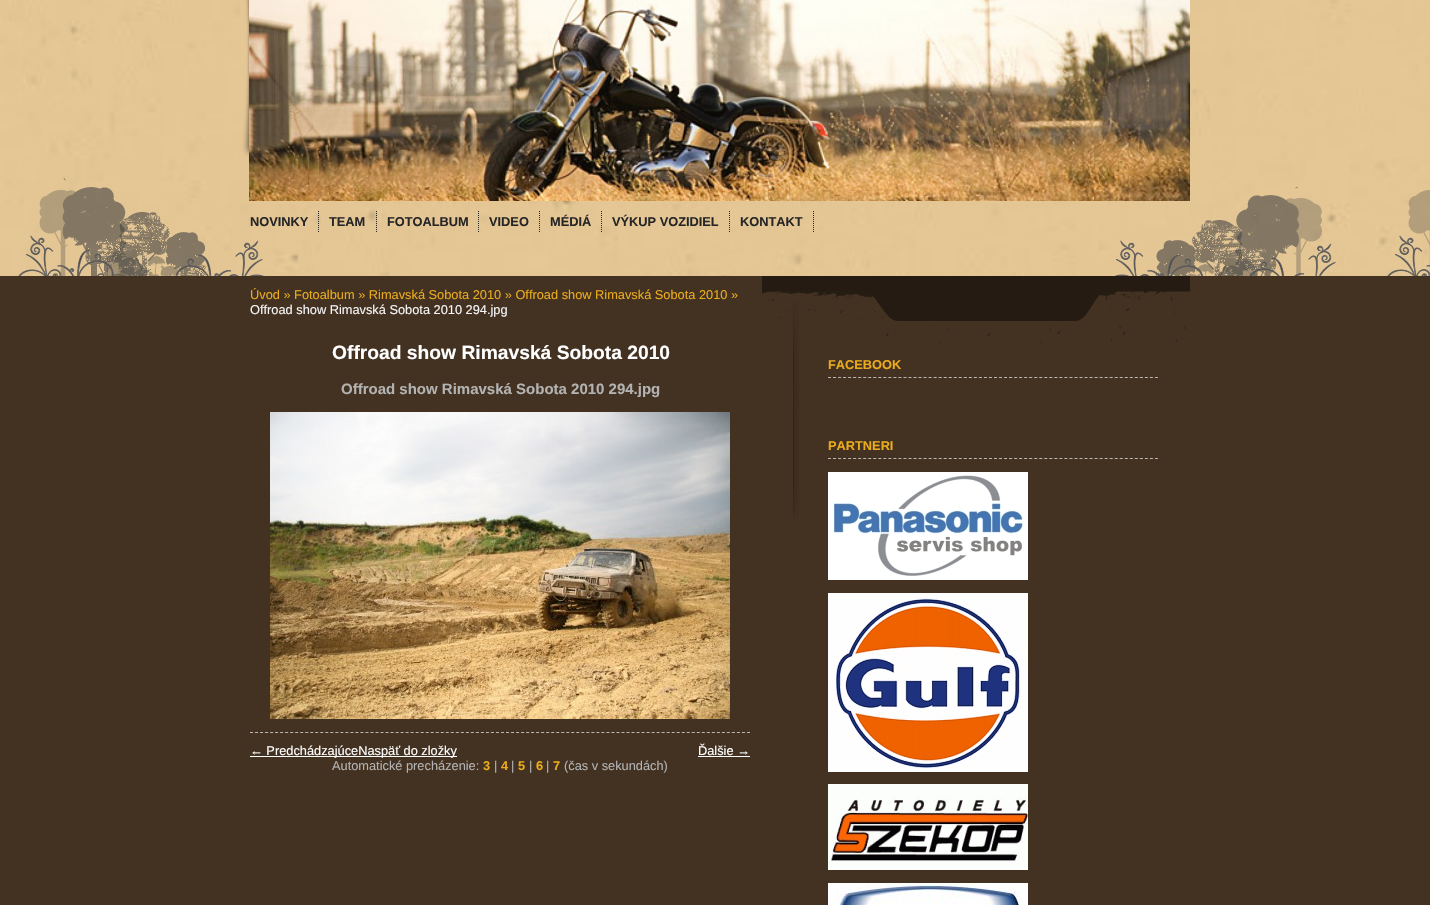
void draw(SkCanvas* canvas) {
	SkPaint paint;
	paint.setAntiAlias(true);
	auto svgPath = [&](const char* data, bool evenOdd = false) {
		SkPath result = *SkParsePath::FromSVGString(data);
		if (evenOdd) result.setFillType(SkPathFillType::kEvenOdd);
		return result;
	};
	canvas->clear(0xff433222);
	canvas->drawImageRect(SkImages::DeferredFromEncodedData(SkData::MakeFromFileName("img1.png")), SkRect::MakeXYWH(0, 0, 1430, 276), SkSamplingOptions());
	canvas->drawImageRect(SkImages::DeferredFromEncodedData(SkData::MakeFromFileName("img2.png")), SkRect::MakeXYWH(18, 177, 246, 99), SkSamplingOptions());
	canvas->drawImageRect(SkImages::DeferredFromEncodedData(SkData::MakeFromFileName("img3.png")), SkRect::MakeXYWH(1115, 186, 315, 90), SkSamplingOptions());
	canvas->drawImageRect(SkImages::DeferredFromEncodedData(SkData::MakeFromFileName("img4.png")), SkRect::MakeXYWH(793, 300, 6, 219), SkSamplingOptions());
	canvas->drawImageRect(SkImages::DeferredFromEncodedData(SkData::MakeFromFileName("img5.png")), SkRect::MakeXYWH(240, 0, 9, 159), SkSamplingOptions());
	canvas->drawImageRect(SkImages::DeferredFromEncodedData(SkData::MakeFromFileName("img6.png")), SkRect::MakeXYWH(249, 0, 941, 201), SkSamplingOptions());
	paint.setStroke(true);
	paint.setStrokeWidth(1);
	paint.setColor(0xff252525);
	paint.setPathEffect(SkDashPathEffect::Make({{1, 1}}, 0));
	canvas->drawPath(svgPath("M318.5 211V232"), paint);
	paint.setPathEffect(nullptr);
	SkFont f1(fontMgr->matchFamilyStyle("Liberation Sans", SkFontStyle::Bold()), 12.8);
	f1.setSubpixel(true);
	paint.setStroke(false);
	paint.setColor(0xff262626);
	canvas->drawString("NOVINKY", 250, 226, f1, paint);
	paint.setStroke(true);
	paint.setColor(0xff252525);
	paint.setPathEffect(SkDashPathEffect::Make({{1, 1}}, 0));
	canvas->drawPath(svgPath("M376.5 211V232"), paint);
	paint.setPathEffect(nullptr);
	paint.setStroke(false);
	paint.setColor(0xff262626);
	canvas->drawString("TEAM", 329, 226, f1, paint);
	paint.setStroke(true);
	paint.setColor(0xff252525);
	paint.setPathEffect(SkDashPathEffect::Make({{1, 1}}, 0));
	canvas->drawPath(svgPath("M478.5 211V232"), paint);
	paint.setPathEffect(nullptr);
	paint.setStroke(false);
	paint.setColor(0xff262626);
	canvas->drawString("FOTOALBUM", 387, 226, f1, paint);
	paint.setStroke(true);
	paint.setColor(0xff252525);
	paint.setPathEffect(SkDashPathEffect::Make({{1, 1}}, 0));
	canvas->drawPath(svgPath("M539.5 211V232"), paint);
	paint.setPathEffect(nullptr);
	paint.setStroke(false);
	paint.setColor(0xff262626);
	canvas->drawString("VIDEO", 489, 226, f1, paint);
	paint.setStroke(true);
	paint.setColor(0xff252525);
	paint.setPathEffect(SkDashPathEffect::Make({{1, 1}}, 0));
	canvas->drawPath(svgPath("M601.5 211V232"), paint);
	paint.setPathEffect(nullptr);
	paint.setStroke(false);
	paint.setColor(0xff262626);
	canvas->drawString("MÉDIÁ", 550, 226, f1, paint);
	paint.setStroke(true);
	paint.setColor(0xff252525);
	paint.setPathEffect(SkDashPathEffect::Make({{1, 1}}, 0));
	canvas->drawPath(svgPath("M729.5 211V232"), paint);
	paint.setPathEffect(nullptr);
	paint.setStroke(false);
	paint.setColor(0xff262626);
	canvas->drawString("VÝKUP VOZIDIEL", 612, 226, f1, paint);
	paint.setStroke(true);
	paint.setColor(0xff252525);
	paint.setPathEffect(SkDashPathEffect::Make({{1, 1}}, 0));
	canvas->drawPath(svgPath("M813.5 211V232"), paint);
	paint.setPathEffect(nullptr);
	paint.setStroke(false);
	paint.setColor(0xff262626);
	canvas->drawString("KONTAKT", 740, 226, f1, paint);
	SkFont f2(fontMgr->matchFamilyStyle("Liberation Sans", SkFontStyle::Normal()), 12.8);
	f2.setSubpixel(true);
	paint.setColor(0xffeaab1e);
	canvas->drawString("Úvod » Fotoalbum » Rimavská Sobota 2010 » Offroad show Rimavská Sobota 2010 »", 250, 299, f2, paint);
	paint.setColor(0xfff5f5f5);
	canvas->drawString("Offroad show Rimavská Sobota 2010 294.jpg", 250, 314, f2, paint);
	SkFont f3(fontMgr->matchFamilyStyle("Liberation Sans", SkFontStyle::Bold()), 19.25);
	f3.setSubpixel(true);
	paint.setColor(0xffffffff);
	canvas->drawString("Offroad show Rimavská Sobota 2010", 332, 359, f3, paint);
	paint.setStroke(true);
	paint.setColor(0xffb8b8b8);
	paint.setPathEffect(SkDashPathEffect::Make({{3, 2.02f}}, 0));
	canvas->drawPath(svgPath("M250 732.5H750"), paint);
	paint.setPathEffect(nullptr);
	SkFont f4(fontMgr->matchFamilyStyle("Liberation Sans", SkFontStyle::Bold()), 15);
	f4.setSubpixel(true);
	paint.setStroke(false);
	paint.setColor(0xffb3b3b3);
	canvas->drawString("Offroad show Rimavská Sobota 2010 294.jpg", 341, 394, f4, paint);
	canvas->drawImageRect(SkImages::DeferredFromEncodedData(SkData::MakeFromFileName("img7.png")), SkRect::MakeXYWH(270, 412, 460, 307), SkSamplingOptions());
	paint.setColor(0xffffffff);
	canvas->drawRect(SkRect::MakeXYWH(250, 756, 207, 1), paint);
	canvas->drawString("← PredchádzajúceNaspäť do zložky", 250, 755, f2, paint);
	canvas->drawString("Ďalšie →", 698, 755, f2, paint);
	canvas->drawRect(SkRect::MakeXYWH(698, 756, 52, 1), paint);
	paint.setColor(0xffb3b3b3);
	canvas->drawString("Automatické precházenie:", 332, 770, f2, paint);
	paint.setColor(0xffeaab1e);
	canvas->drawString("3", 483, 770, f1, paint);
	paint.setColor(0xffb3b3b3);
	canvas->drawString("|", 494, 770, f2, paint);
	paint.setColor(0xffeaab1e);
	canvas->drawString("4", 501, 770, f1, paint);
	paint.setColor(0xffb3b3b3);
	canvas->drawString("|", 511, 770, f2, paint);
	paint.setColor(0xffeaab1e);
	canvas->drawString("5", 518, 770, f1, paint);
	paint.setColor(0xffb3b3b3);
	canvas->drawString("|", 529, 770, f2, paint);
	paint.setColor(0xffeaab1e);
	canvas->drawString("6", 536, 770, f1, paint);
	paint.setColor(0xffb3b3b3);
	canvas->drawString("|", 546, 770, f2, paint);
	paint.setColor(0xffeaab1e);
	canvas->drawString("7", 553, 770, f1, paint);
	paint.setColor(0xffb3b3b3);
	canvas->drawString("(čas v sekundách)", 564, 770, f2, paint);
	canvas->drawImageRect(SkImages::DeferredFromEncodedData(SkData::MakeFromFileName("img8.png")), SkRect::MakeXYWH(762, 276, 428, 70), SkSamplingOptions());
	paint.setStroke(true);
	paint.setColor(0xffb8b8b8);
	paint.setPathEffect(SkDashPathEffect::Make({{3, 2.03f}}, 0));
	canvas->drawPath(svgPath("M828 377.5H1158"), paint);
	paint.setPathEffect(nullptr);
	paint.setStroke(false);
	paint.setColor(0xffeaab1e);
	canvas->drawString("FACEBOOK", 828, 369, f1, paint);
	paint.setStroke(true);
	paint.setColor(0xffb8b8b8);
	paint.setPathEffect(SkDashPathEffect::Make({{3, 2.03f}}, 0));
	canvas->drawPath(svgPath("M828 458.5H1158"), paint);
	paint.setPathEffect(nullptr);
	paint.setStroke(false);
	paint.setColor(0xffeaab1e);
	canvas->drawString("PARTNERI", 828, 450, f1, paint);
	canvas->drawImageRect(SkImages::DeferredFromEncodedData(SkData::MakeFromFileName("img9.png")), SkRect::MakeXYWH(828, 472, 200, 108), SkSamplingOptions());
	canvas->drawImageRect(SkImages::DeferredFromEncodedData(SkData::MakeFromFileName("img10.png")), SkRect::MakeXYWH(828, 593, 200, 179), SkSamplingOptions());
	canvas->drawImageRect(SkImages::DeferredFromEncodedData(SkData::MakeFromFileName("img11.png")), SkRect::MakeXYWH(828, 784, 200, 86), SkSamplingOptions());
	canvas->drawImageRect(SkImages::DeferredFromEncodedData(SkData::MakeFromFileName("img12.png")), SkRect::MakeXYWH(828, 883, 200, 22), SkSamplingOptions());
}
